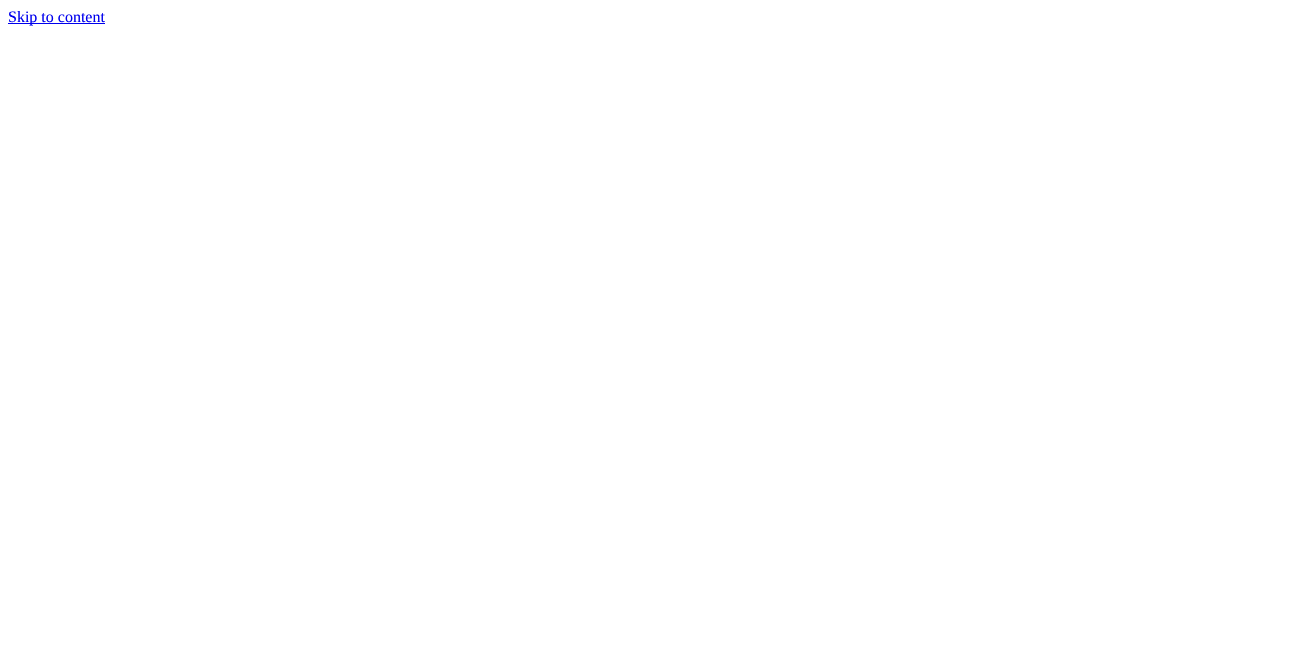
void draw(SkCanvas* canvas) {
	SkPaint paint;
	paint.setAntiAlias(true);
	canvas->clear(0xffffffff);
	paint.setColor(0xff0000ee);
	canvas->drawRect(SkRect::MakeXYWH(8, 23, 97, 1), paint);
	SkFont f1(fontMgr->matchFamilyStyle("Liberation Serif", SkFontStyle::Normal()), 16);
	f1.setSubpixel(true);
	canvas->drawString("Skip to content", 8, 22, f1, paint);
}
